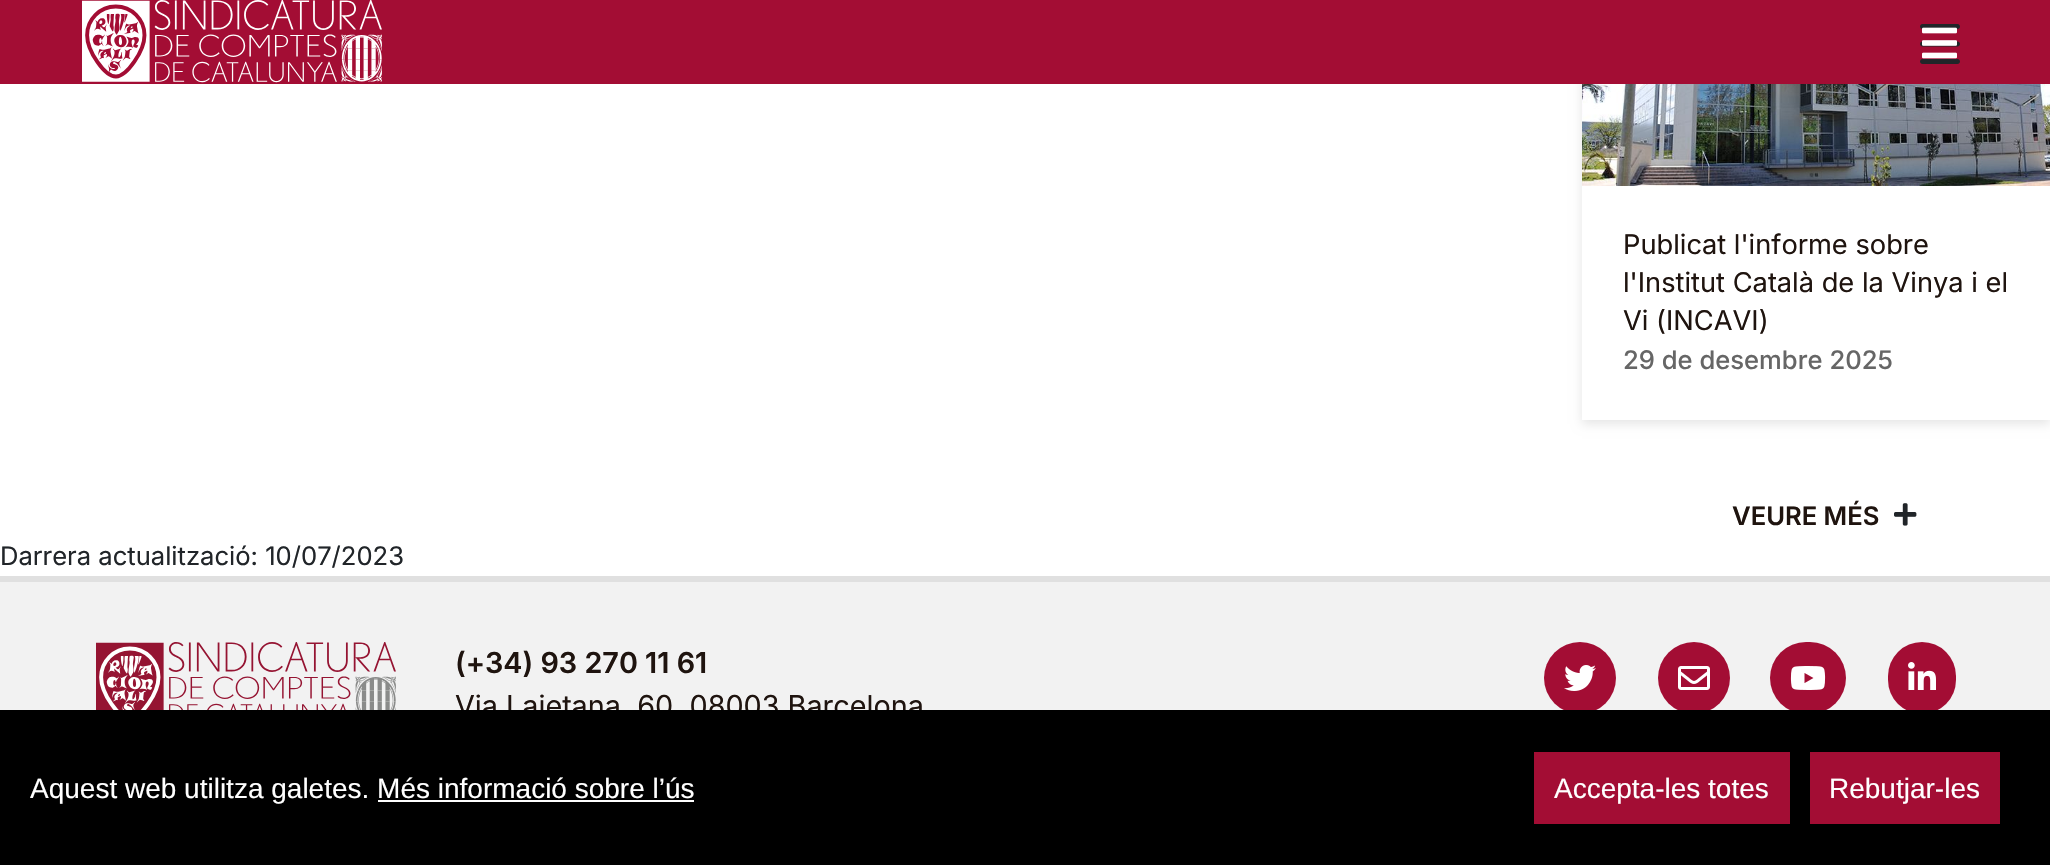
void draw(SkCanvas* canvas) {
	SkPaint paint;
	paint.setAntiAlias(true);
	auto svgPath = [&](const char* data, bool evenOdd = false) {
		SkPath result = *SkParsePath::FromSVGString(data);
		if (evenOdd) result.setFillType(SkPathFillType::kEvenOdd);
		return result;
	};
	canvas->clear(0xffffffff);
	canvas->save();
	canvas->clipPath(svgPath("M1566 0H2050V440H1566ZM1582-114H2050V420H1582Z", true), true);
	paint.setColor(0x1a000000);
	paint.setMaskFilter(SkMaskFilter::MakeBlur(kNormal_SkBlurStyle, 5));
	canvas->drawRect(SkRect::MakeXYWH(1582, -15, 468, 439), paint);
	paint.setMaskFilter(nullptr);
	canvas->restore();
	paint.setColor(0xffa30d34);
	canvas->drawRect(SkRect::MakeXYWH(0, 0, 2050, 84), paint);
	canvas->drawImageRect(SkImages::DeferredFromEncodedData(SkData::MakeFromFileName("img1.png")), SkRect::MakeXYWH(82, 0, 300, 83), SkSamplingOptions());
	canvas->drawImageRect(SkImages::DeferredFromEncodedData(SkData::MakeFromFileName("img2.png")), SkRect::MakeXYWH(1920, 24, 40, 40), SkSamplingOptions());
	canvas->drawImageRect(SkImages::DeferredFromEncodedData(SkData::MakeFromFileName("img3.png")), SkRect::MakeXYWH(1922, 27, 35, 32), SkSamplingOptions());
	canvas->drawImageRect(SkImages::DeferredFromEncodedData(SkData::MakeFromFileName("img4.png")), SkRect::MakeXYWH(1582, 84, 468, 102), SkSamplingOptions());
	SkFont f1(fontMgr->matchFamilyStyle("Inter", SkFontStyle::Normal()), 27.25);
	f1.setSubpixel(true);
	paint.setColor(0xff1f140f);
	canvas->drawString("Publicat l'informe sobre", 1623, 254, f1, paint);
	canvas->drawString("l'Institut Català de la Vinya i el", 1623, 292, f1, paint);
	canvas->drawString("Vi (INCAVI)", 1623, 330, f1, paint);
	SkFont f2(fontMgr->matchFamilyStyle("Inter", SkFontStyle(500, SkFontStyle::kNormal_Width, SkFontStyle::kUpright_Slant)), 25.6);
	f2.setSubpixel(true);
	paint.setColor(0xff666666);
	canvas->drawString("29 de desembre 2025", 1623, 369, f2, paint);
	SkFont f3(fontMgr->matchFamilyStyle("Inter", SkFontStyle(600, SkFontStyle::kNormal_Width, SkFontStyle::kUpright_Slant)), 25.6);
	f3.setSubpixel(true);
	paint.setColor(0xff1f140f);
	canvas->drawString("VEURE MÉS", 1732, 525, f3, paint);
	canvas->drawImageRect(SkImages::DeferredFromEncodedData(SkData::MakeFromFileName("img5.png")), SkRect::MakeXYWH(1894, 503, 23, 23), SkSamplingOptions());
	SkFont f4(fontMgr->matchFamilyStyle("Inter", SkFontStyle::Normal()), 25.6);
	f4.setSubpixel(true);
	paint.setColor(0xff212529);
	canvas->drawString("Darrera actualització: 10/07/2023", 0, 565, f4, paint);
	paint.setColor(0xfff2f2f2);
	canvas->drawRect(SkRect::MakeXYWH(0, 582, 2050, 128), paint);
	paint.setColor(0xffe0e0e0);
	canvas->drawRect(SkRect::MakeXYWH(0, 576, 2050, 6), paint);
	canvas->drawImageRect(SkImages::DeferredFromEncodedData(SkData::MakeFromFileName("img6.png")), SkRect::MakeXYWH(96, 642, 300, 68), SkSamplingOptions());
	SkFont f5(fontMgr->matchFamilyStyle("Inter", SkFontStyle(600, SkFontStyle::kNormal_Width, SkFontStyle::kUpright_Slant)), 28.75);
	f5.setSubpixel(true);
	paint.setColor(0xff1f140f);
	canvas->drawString("(+34) 93 270 11 61", 455, 673, f5, paint);
	SkFont f6(fontMgr->matchFamilyStyle("Inter", SkFontStyle::Normal()), 28.75);
	f6.setSubpixel(true);
	canvas->drawString("Via Laietana, 60, 08003 Barcelona", 455, 716, f6, paint);
	paint.setColor(0xffa30d34);
	canvas->drawCircle(1580, 678, 36, paint);
	canvas->drawImageRect(SkImages::DeferredFromEncodedData(SkData::MakeFromFileName("img7.png")), SkRect::MakeXYWH(1564, 665, 32, 26), SkSamplingOptions());
	canvas->drawCircle(1694, 678, 36, paint);
	canvas->drawImageRect(SkImages::DeferredFromEncodedData(SkData::MakeFromFileName("img8.png")), SkRect::MakeXYWH(1678, 666, 32, 24), SkSamplingOptions());
	canvas->drawRoundRect(SkRect::MakeXYWH(1770, 642, 76, 72), 36, 36, paint);
	canvas->drawImageRect(SkImages::DeferredFromEncodedData(SkData::MakeFromFileName("img9.png")), SkRect::MakeXYWH(1790, 666, 36, 24), SkSamplingOptions());
	canvas->drawRoundRect(SkRect::MakeXYWH(1888, 642, 68, 72), 34, 34, paint);
	canvas->drawImageRect(SkImages::DeferredFromEncodedData(SkData::MakeFromFileName("img10.png")), SkRect::MakeXYWH(1908, 662, 28, 28), SkSamplingOptions());
	paint.setColor(0xff000000);
	canvas->drawRect(SkRect::MakeXYWH(0, 710, 2050, 155), paint);
	SkFont f7(fontMgr->matchFamilyStyle("Liberation Sans", SkFontStyle::Normal()), 28);
	f7.setSubpixel(true);
	paint.setColor(0xffffffff);
	canvas->drawString("Aquest web utilitza galetes. Més informació sobre l’ús", 30, 798, f7, paint);
	canvas->drawRect(SkRect::MakeXYWH(378, 800, 316, 2), paint);
	paint.setColor(0xffa30d34);
	canvas->drawRect(SkRect::MakeXYWH(1534, 752, 256, 72), paint);
	paint.setColor(0xffffffff);
	canvas->drawString("Accepta-les totes", 1554, 798, f7, paint);
	paint.setColor(0xffa30d34);
	canvas->drawRect(SkRect::MakeXYWH(1810, 752, 190, 72), paint);
	paint.setColor(0xffffffff);
	canvas->drawString("Rebutjar-les", 1829, 798, f7, paint);
}
